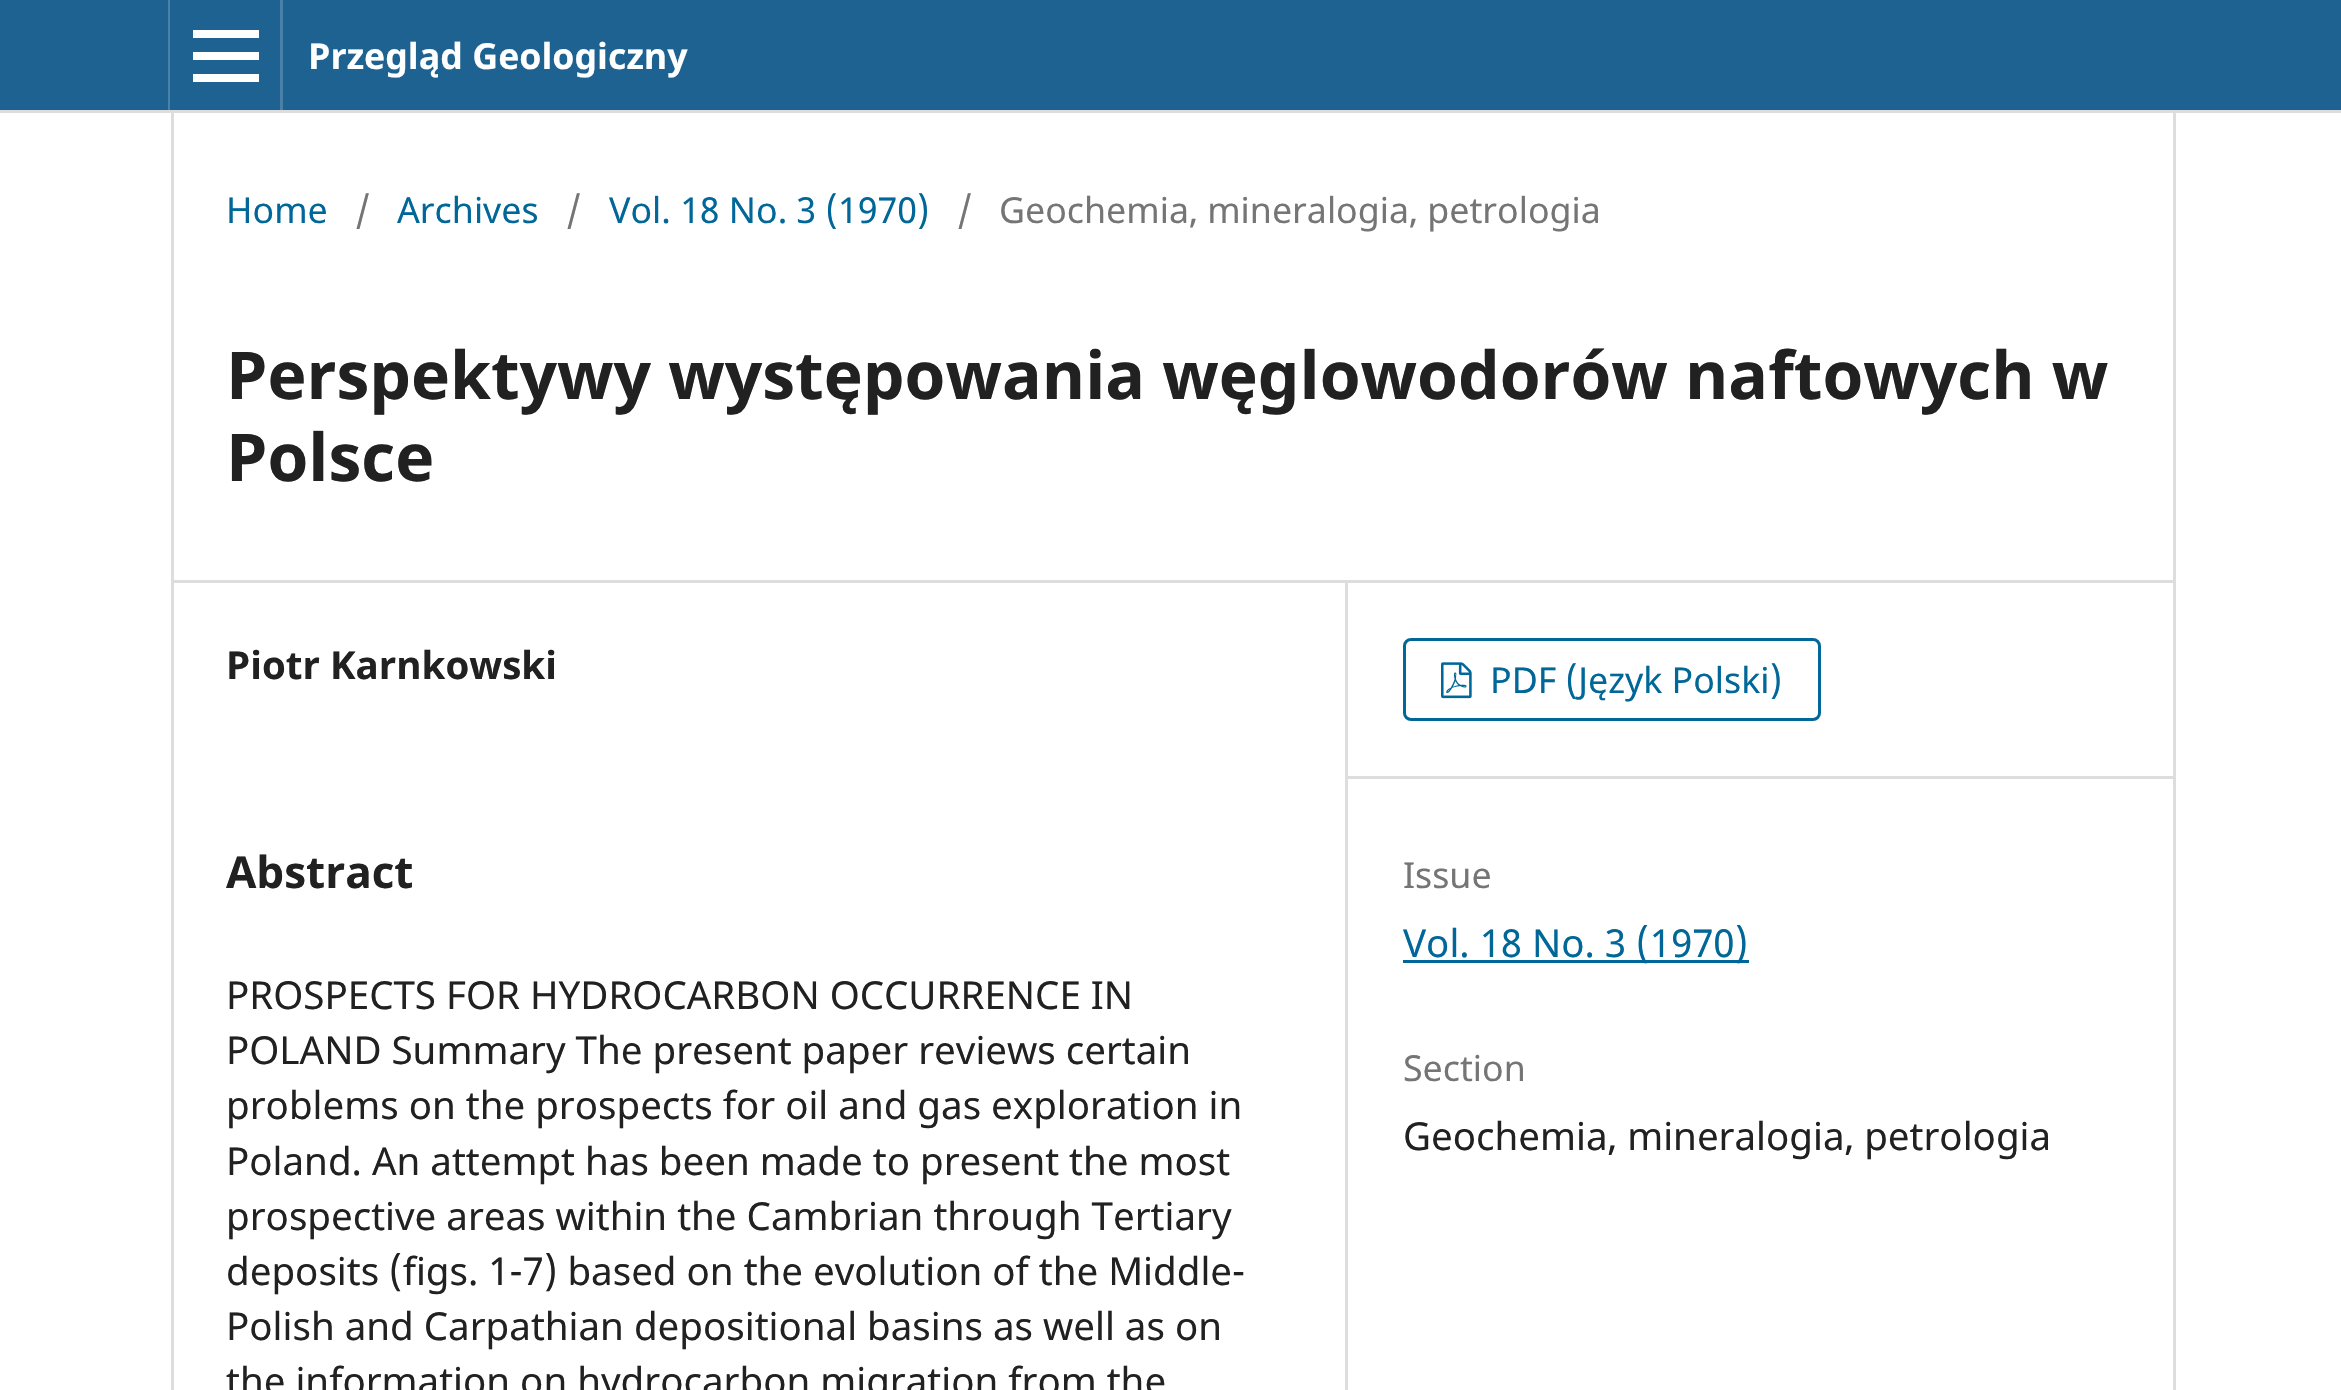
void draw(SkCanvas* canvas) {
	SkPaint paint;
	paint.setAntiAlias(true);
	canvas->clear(0xffffffff);
	paint.setColor(0xff1e6292);
	canvas->drawRect(SkRect::MakeXYWH(0, 0, 2341, 110), paint);
	paint.setColor(0xffdddddd);
	canvas->drawRect(SkRect::MakeXYWH(0, 110, 2341, 3), paint);
	paint.setColor(0xff4b81a8);
	canvas->drawRect(SkRect::MakeXYWH(168, 0, 2, 110), paint);
	canvas->drawRect(SkRect::MakeXYWH(280, 0, 3, 110), paint);
	paint.setColor(0xffffffff);
	canvas->drawRect(SkRect::MakeXYWH(193, 74, 66, 8), paint);
	canvas->drawRect(SkRect::MakeXYWH(193, 30, 66, 8), paint);
	canvas->drawRect(SkRect::MakeXYWH(193, 52, 66, 8), paint);
	SkFont f1(fontMgr->matchFamilyStyle("Noto Sans", SkFontStyle::Bold()), 35.75);
	f1.setSubpixel(true);
	canvas->drawString("Przegląd Geologiczny", 308, 69, f1, paint);
	paint.setColor(0xffdddddd);
	canvas->drawRect(SkRect::MakeXYWH(171, 580, 2002, 3), paint);
	canvas->drawRect(SkRect::MakeXYWH(171, 113, 3, 1277), paint);
	SkFont f2(fontMgr->matchFamilyStyle("Noto Sans", SkFontStyle::Normal()), 35.75);
	f2.setSubpixel(true);
	paint.setColor(0xff006798);
	canvas->drawString("Home", 226, 223, f2, paint);
	paint.setColor(0xff757575);
	canvas->drawString("/", 355, 223, f2, paint);
	paint.setColor(0xff006798);
	canvas->drawString("Archives", 397, 223, f2, paint);
	paint.setColor(0xff757575);
	canvas->drawString("/", 566, 223, f2, paint);
	paint.setColor(0xff006798);
	canvas->drawString("Vol. 18 No. 3 (1970)", 609, 223, f2, paint);
	paint.setColor(0xff757575);
	canvas->drawString("/", 957, 223, f2, paint);
	canvas->drawString("Geochemia, mineralogia, petrologia", 999, 223, f2, paint);
	SkFont f3(fontMgr->matchFamilyStyle("Noto Sans", SkFontStyle::Bold()), 66);
	f3.setSubpixel(true);
	paint.setColor(0xff212121);
	canvas->drawString("Perspektywy występowania węglowodorów naftowych w", 226, 399, f3, paint);
	canvas->drawString("Polsce", 226, 481, f3, paint);
	paint.setColor(0xffdddddd);
	canvas->drawRect(SkRect::MakeXYWH(1345, 583, 3, 807), paint);
	SkFont f4(fontMgr->matchFamilyStyle("Noto Sans", SkFontStyle::Bold()), 38.5);
	f4.setSubpixel(true);
	paint.setColor(0xff212121);
	canvas->drawString("Piotr Karnkowski", 226, 679, f4, paint);
	SkFont f5(fontMgr->matchFamilyStyle("Noto Sans", SkFontStyle::Bold()), 44);
	f5.setSubpixel(true);
	canvas->drawString("Abstract", 226, 888, f5, paint);
	SkFont f6(fontMgr->matchFamilyStyle("Noto Sans", SkFontStyle::Normal()), 38.5);
	f6.setSubpixel(true);
	canvas->drawString("PROSPECTS FOR HYDROCARBON OCCURRENCE IN", 226, 1009, f6, paint);
	canvas->drawString("POLAND Summary The present paper reviews certain", 226, 1064, f6, paint);
	canvas->drawString("problems on the prospects for oil and gas exploration in", 226, 1119, f6, paint);
	canvas->drawString("Poland. An attempt has been made to present the most", 226, 1175, f6, paint);
	canvas->drawString("prospective areas within the Cambrian through Tertiary", 226, 1230, f6, paint);
	canvas->drawString("deposits (figs. 1-7) based on the evolution of the Middle-", 226, 1285, f6, paint);
	canvas->drawString("Polish and Carpathian depositional basins as well as on", 226, 1340, f6, paint);
	canvas->drawString("the information on hydrocarbon migration from the", 226, 1395, f6, paint);
	paint.setColor(0xffdddddd);
	canvas->drawRect(SkRect::MakeXYWH(1348, 776, 825, 3), paint);
	paint.setStroke(true);
	paint.setStrokeWidth(3);
	paint.setColor(0xff006798);
	canvas->drawRoundRect(SkRect::MakeXYWH(1404.5, 639.5, 415, 80), 6.5, 6.5, paint);
	canvas->drawImageRect(SkImages::DeferredFromEncodedData(SkData::MakeFromFileName("img1.png")), SkRect::MakeXYWH(1441, 662, 31, 37), SkSamplingOptions());
	paint.setStroke(false);
	canvas->drawString("PDF (Język Polski)", 1490, 693, f2, paint);
	paint.setColor(0xff757575);
	canvas->drawString("Issue", 1403, 888, f2, paint);
	paint.setColor(0xff006798);
	canvas->drawRect(SkRect::MakeXYWH(1403, 960, 346, 3), paint);
	canvas->drawString("Vol. 18 No. 3 (1970)", 1403, 957, f6, paint);
	paint.setColor(0xff757575);
	canvas->drawString("Section", 1403, 1081, f2, paint);
	paint.setColor(0xff212121);
	canvas->drawString("Geochemia, mineralogia, petrologia", 1403, 1150, f6, paint);
	paint.setColor(0xffdddddd);
	canvas->drawRect(SkRect::MakeXYWH(2173, 113, 3, 1277), paint);
}
